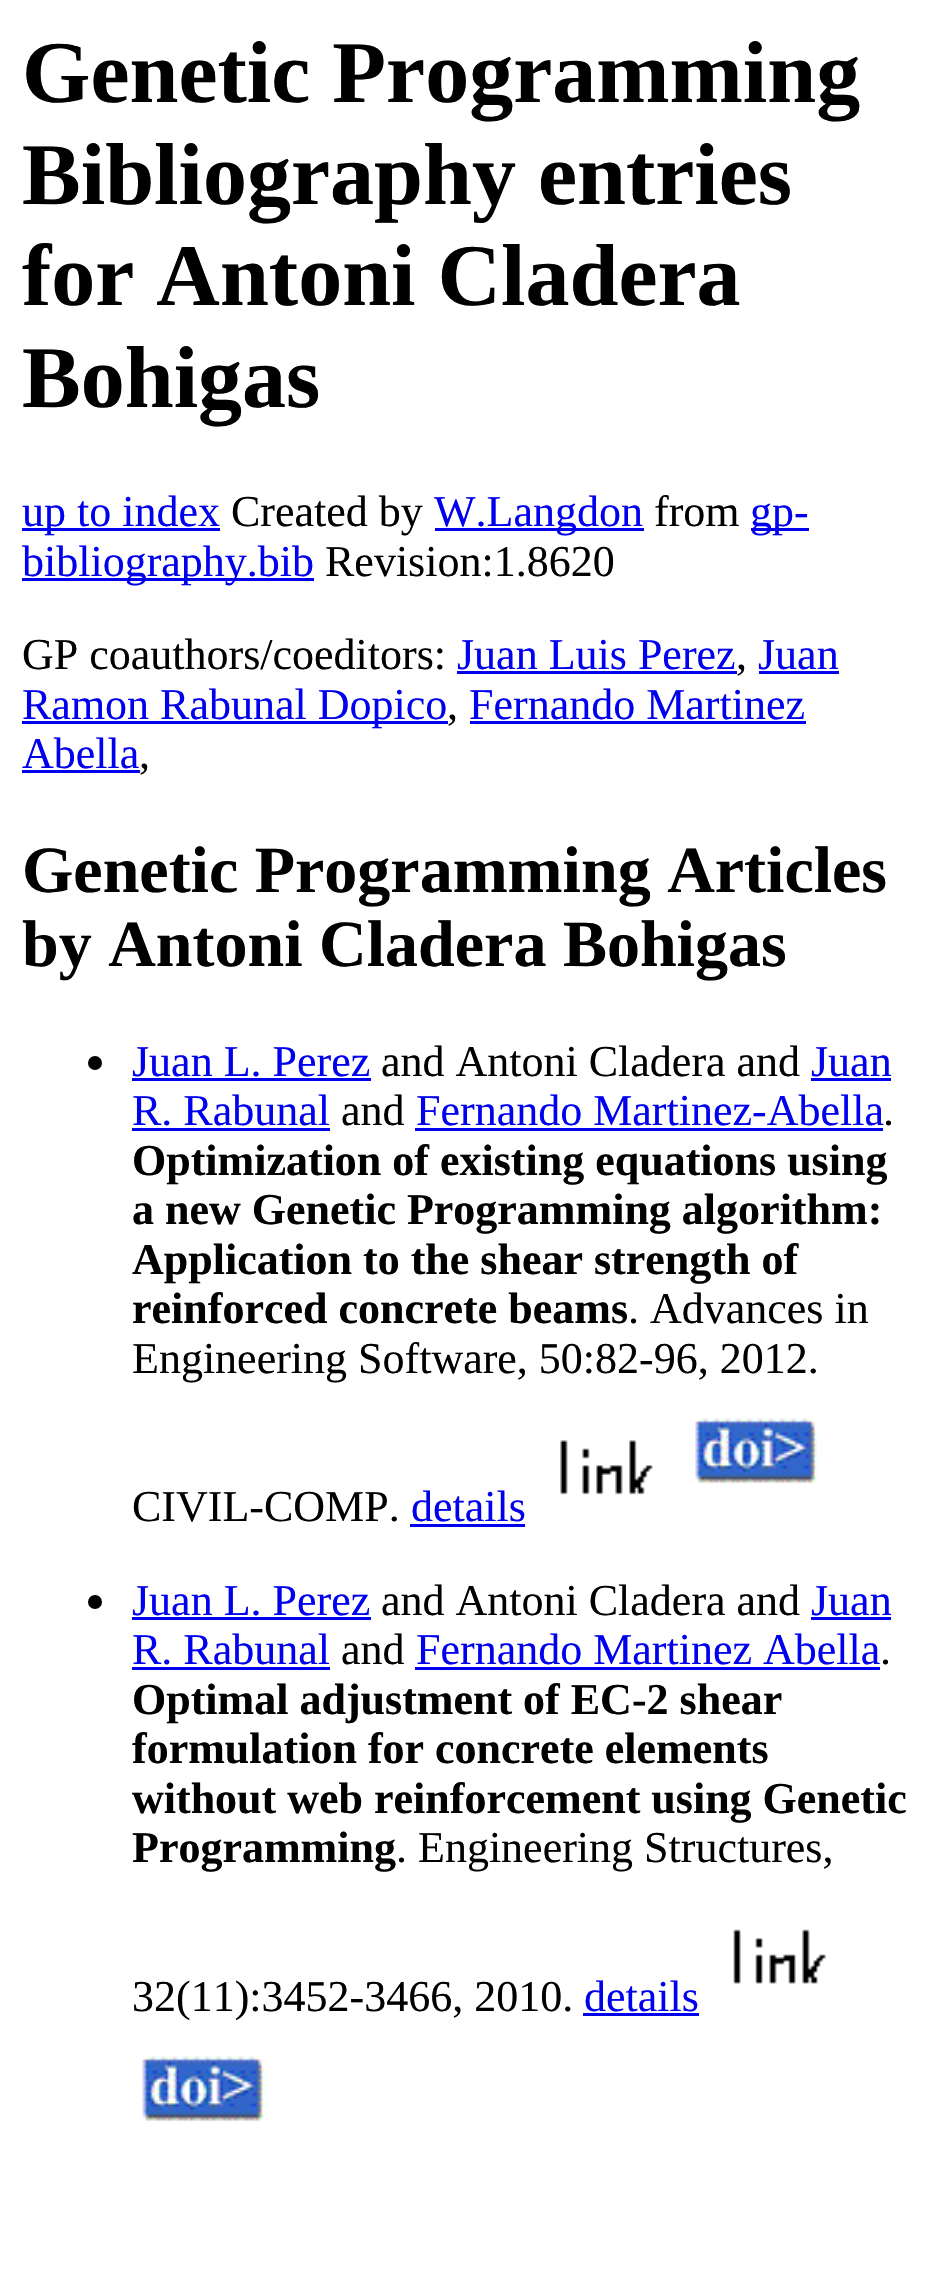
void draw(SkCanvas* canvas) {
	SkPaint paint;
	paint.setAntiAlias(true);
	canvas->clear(0xffffffff);
	SkFont f1(fontMgr->matchFamilyStyle("Liberation Serif", SkFontStyle::Bold()), 88);
	f1.setSubpixel(true);
	paint.setColor(0xff000000);
	canvas->drawString("Genetic Programming", 22, 102, f1, paint);
	canvas->drawString("Bibliography entries", 22, 204, f1, paint);
	canvas->drawString("for Antoni Cladera", 22, 305, f1, paint);
	canvas->drawString("Bohigas", 22, 407, f1, paint);
	paint.setColor(0xff0000ee);
	canvas->drawRect(SkRect::MakeXYWH(22, 528, 198, 3), paint);
	SkFont f2(fontMgr->matchFamilyStyle("Liberation Serif", SkFontStyle::Normal()), 44);
	f2.setSubpixel(true);
	canvas->drawString("up to index", 22, 526, f2, paint);
	paint.setColor(0xff000000);
	canvas->drawString("Created by", 231, 526, f2, paint);
	paint.setColor(0xff0000ee);
	canvas->drawRect(SkRect::MakeXYWH(435, 528, 209, 3), paint);
	canvas->drawString("W.Langdon", 434, 526, f2, paint);
	paint.setColor(0xff000000);
	canvas->drawString("from", 654, 526, f2, paint);
	paint.setColor(0xff0000ee);
	canvas->drawRect(SkRect::MakeXYWH(751, 528, 58, 3), paint);
	canvas->drawString("gp-", 750, 526, f2, paint);
	canvas->drawRect(SkRect::MakeXYWH(22, 578, 292, 3), paint);
	canvas->drawString("bibliography.bib", 22, 576, f2, paint);
	paint.setColor(0xff000000);
	canvas->drawString("Revision:1.8620", 325, 576, f2, paint);
	canvas->drawString("GP coauthors/coeditors:", 22, 669, f2, paint);
	paint.setColor(0xff0000ee);
	canvas->drawString("Juan Luis Perez", 457, 669, f2, paint);
	canvas->drawRect(SkRect::MakeXYWH(457, 671, 280, 3), paint);
	paint.setColor(0xff000000);
	canvas->drawString(",", 736, 669, f2, paint);
	paint.setColor(0xff0000ee);
	canvas->drawString("Juan", 758, 669, f2, paint);
	canvas->drawRect(SkRect::MakeXYWH(759, 671, 80, 3), paint);
	canvas->drawRect(SkRect::MakeXYWH(22, 721, 426, 3), paint);
	canvas->drawString("Ramon Rabunal Dopico", 22, 719, f2, paint);
	paint.setColor(0xff000000);
	canvas->drawString(",", 447, 719, f2, paint);
	paint.setColor(0xff0000ee);
	canvas->drawString("Fernando Martinez", 469, 719, f2, paint);
	canvas->drawRect(SkRect::MakeXYWH(470, 721, 336, 3), paint);
	canvas->drawString("Abella", 22, 768, f2, paint);
	canvas->drawRect(SkRect::MakeXYWH(22, 770, 118, 3), paint);
	paint.setColor(0xff000000);
	canvas->drawString(",", 139, 768, f2, paint);
	SkFont f3(fontMgr->matchFamilyStyle("Liberation Serif", SkFontStyle::Bold()), 66);
	f3.setSubpixel(true);
	canvas->drawString("Genetic Programming Articles", 22, 892, f3, paint);
	canvas->drawString("by Antoni Cladera Bohigas", 22, 966, f3, paint);
	canvas->drawCircle(95, 1063, 7, paint);
	paint.setColor(0xff0000ee);
	canvas->drawString("Juan L. Perez", 132, 1076, f2, paint);
	canvas->drawRect(SkRect::MakeXYWH(132, 1078, 239, 3), paint);
	paint.setColor(0xff000000);
	canvas->drawString("and Antoni Cladera and", 381, 1076, f2, paint);
	paint.setColor(0xff0000ee);
	canvas->drawString("Juan", 811, 1076, f2, paint);
	canvas->drawRect(SkRect::MakeXYWH(811, 1078, 80, 3), paint);
	canvas->drawString("R. Rabunal", 132, 1125, f2, paint);
	canvas->drawRect(SkRect::MakeXYWH(132, 1128, 198, 3), paint);
	paint.setColor(0xff000000);
	canvas->drawString("and", 341, 1125, f2, paint);
	paint.setColor(0xff0000ee);
	canvas->drawString("Fernando Martinez-Abella", 416, 1125, f2, paint);
	canvas->drawRect(SkRect::MakeXYWH(415, 1128, 468, 3), paint);
	paint.setColor(0xff000000);
	canvas->drawString(".", 883, 1125, f2, paint);
	SkFont f4(fontMgr->matchFamilyStyle("Liberation Serif", SkFontStyle::Bold()), 44);
	f4.setSubpixel(true);
	canvas->drawString("Optimization of existing equations using", 132, 1175, f4, paint);
	canvas->drawString("a new Genetic Programming algorithm:", 132, 1224, f4, paint);
	canvas->drawString("Application to the shear strength of", 132, 1274, f4, paint);
	canvas->drawString("reinforced concrete beams", 132, 1323, f4, paint);
	canvas->drawString(". Advances in", 628, 1323, f2, paint);
	canvas->drawString("Engineering Software, 50:82-96, 2012.", 132, 1373, f2, paint);
	canvas->drawImageRect(SkImages::DeferredFromEncodedData(SkData::MakeFromFileName("img1.png")), SkRect::MakeXYWH(560, 1440, 93, 55), SkSamplingOptions());
	canvas->drawImageRect(SkImages::DeferredFromEncodedData(SkData::MakeFromFileName("img2.png")), SkRect::MakeXYWH(695, 1418, 123, 66), SkSamplingOptions());
	canvas->drawString("CIVIL-COMP.", 132, 1521, f2, paint);
	paint.setColor(0xff0000ee);
	canvas->drawString("details", 411, 1521, f2, paint);
	canvas->drawRect(SkRect::MakeXYWH(410, 1524, 115, 3), paint);
	paint.setColor(0xff000000);
	canvas->drawCircle(95, 1602, 7, paint);
	paint.setColor(0xff0000ee);
	canvas->drawString("Juan L. Perez", 132, 1615, f2, paint);
	canvas->drawRect(SkRect::MakeXYWH(132, 1617, 239, 3), paint);
	paint.setColor(0xff000000);
	canvas->drawString("and Antoni Cladera and", 381, 1615, f2, paint);
	paint.setColor(0xff0000ee);
	canvas->drawString("Juan", 811, 1615, f2, paint);
	canvas->drawRect(SkRect::MakeXYWH(811, 1617, 80, 3), paint);
	canvas->drawString("R. Rabunal", 132, 1664, f2, paint);
	canvas->drawRect(SkRect::MakeXYWH(132, 1667, 198, 3), paint);
	paint.setColor(0xff000000);
	canvas->drawString("and", 341, 1664, f2, paint);
	paint.setColor(0xff0000ee);
	canvas->drawString("Fernando Martinez Abella", 416, 1664, f2, paint);
	canvas->drawRect(SkRect::MakeXYWH(415, 1667, 465, 3), paint);
	paint.setColor(0xff000000);
	canvas->drawString(".", 880, 1664, f2, paint);
	canvas->drawString("Optimal adjustment of EC-2 shear", 132, 1714, f4, paint);
	canvas->drawString("formulation for concrete elements", 132, 1763, f4, paint);
	canvas->drawString("without web reinforcement using Genetic", 132, 1813, f4, paint);
	canvas->drawString("Programming", 132, 1862, f4, paint);
	canvas->drawString(". Engineering Structures,", 396, 1862, f2, paint);
	canvas->drawImageRect(SkImages::DeferredFromEncodedData(SkData::MakeFromFileName("img3.png")), SkRect::MakeXYWH(733, 1929, 93, 55), SkSamplingOptions());
	canvas->drawString("32(11):3452-3466, 2010.", 132, 2011, f2, paint);
	paint.setColor(0xff0000ee);
	canvas->drawString("details", 584, 2011, f2, paint);
	canvas->drawRect(SkRect::MakeXYWH(583, 2013, 116, 3), paint);
	canvas->drawImageRect(SkImages::DeferredFromEncodedData(SkData::MakeFromFileName("img4.png")), SkRect::MakeXYWH(142, 2056, 123, 66), SkSamplingOptions());
}
